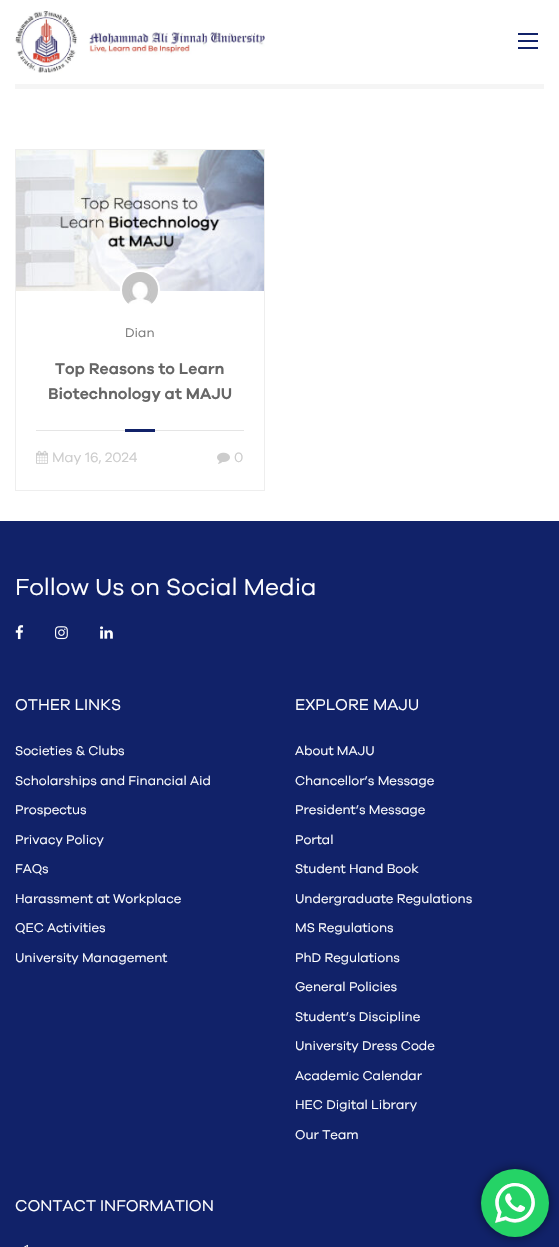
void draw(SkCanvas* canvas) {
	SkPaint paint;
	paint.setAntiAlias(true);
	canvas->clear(0xffffffff);
	canvas->drawImageRect(SkImages::DeferredFromEncodedData(SkData::MakeFromFileName("img1.png")), SkRect::MakeXYWH(15, 11, 250, 62), SkSamplingOptions());
	paint.setColor(0xff112269);
	canvas->drawRect(SkRect::MakeXYWH(518, 33, 20, 2), paint);
	canvas->drawRect(SkRect::MakeXYWH(518, 40, 20, 2), paint);
	canvas->drawRect(SkRect::MakeXYWH(518, 47, 20, 2), paint);
	paint.setColor(0xfff5f5f5);
	canvas->drawRect(SkRect::MakeXYWH(15, 84, 529, 5), paint);
	paint.setStroke(true);
	paint.setStrokeWidth(1);
	paint.setColor(0xffeeeeee);
	canvas->drawRect(SkRect::MakeXYWH(15.5, 149.5, 249, 341), paint);
	canvas->drawImageRect(SkImages::DeferredFromEncodedData(SkData::MakeFromFileName("img2.png")), SkRect::MakeXYWH(16, 150, 248, 141), SkSamplingOptions());
	paint.setStrokeWidth(2);
	paint.setColor(0xffffffff);
	canvas->drawCircle(140, 290, 19, paint);
	canvas->drawImageRect(SkImages::DeferredFromEncodedData(SkData::MakeFromFileName("img3.png")), SkRect::MakeXYWH(122, 272, 36, 32), SkSamplingOptions());
	SkFont f1(fontMgr->matchFamilyStyle("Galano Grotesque", SkFontStyle::Normal()), 13);
	f1.setSubpixel(true);
	paint.setStroke(false);
	paint.setColor(0xff7a7a7a);
	canvas->drawString("Dian", 125, 337, f1, paint);
	SkFont f2(fontMgr->matchFamilyStyle("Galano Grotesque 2", SkFontStyle::Normal()), 16);
	f2.setSubpixel(true);
	paint.setColor(0xff666666);
	canvas->drawString("Top Reasons to Learn", 55, 374, f2, paint);
	canvas->drawString("Biotechnology at MAJU", 48, 399, f2, paint);
	paint.setColor(0xffe5e5e5);
	canvas->drawRect(SkRect::MakeXYWH(36, 430, 208, 1), paint);
	paint.setColor(0xff112269);
	canvas->drawRect(SkRect::MakeXYWH(125, 429, 30, 3), paint);
	canvas->drawImageRect(SkImages::DeferredFromEncodedData(SkData::MakeFromFileName("img4.png")), SkRect::MakeXYWH(36, 450, 12, 14), SkSamplingOptions());
	SkFont f3(fontMgr->matchFamilyStyle("Galano Grotesque", SkFontStyle::Normal()), 14);
	f3.setSubpixel(true);
	paint.setColor(0xffcccccc);
	canvas->drawString("May 16, 2024", 52, 462, f3, paint);
	canvas->drawImageRect(SkImages::DeferredFromEncodedData(SkData::MakeFromFileName("img5.png")), SkRect::MakeXYWH(217, 452, 13, 12), SkSamplingOptions());
	canvas->drawString("0", 234, 462, f3, paint);
	paint.setColor(0xff112269);
	canvas->drawRect(SkRect::MakeXYWH(0, 521, 559, 726), paint);
	SkFont f4(fontMgr->matchFamilyStyle("Galano Grotesque", SkFontStyle::Normal()), 24);
	f4.setSubpixel(true);
	paint.setColor(0xffffffff);
	canvas->drawString("Follow Us on Social Media", 15, 595, f4, paint);
	canvas->drawImageRect(SkImages::DeferredFromEncodedData(SkData::MakeFromFileName("img6.png")), SkRect::MakeXYWH(15, 625, 9, 15), SkSamplingOptions());
	canvas->drawImageRect(SkImages::DeferredFromEncodedData(SkData::MakeFromFileName("img7.png")), SkRect::MakeXYWH(55, 626, 13, 14), SkSamplingOptions());
	canvas->drawImageRect(SkImages::DeferredFromEncodedData(SkData::MakeFromFileName("img8.png")), SkRect::MakeXYWH(100, 626, 13, 13), SkSamplingOptions());
	SkFont f5(fontMgr->matchFamilyStyle("Galano Grotesque", SkFontStyle::Normal()), 16);
	f5.setSubpixel(true);
	canvas->drawString("OTHER LINKS", 15, 710, f5, paint);
	canvas->drawString("Societies & Clubs", 15, 755, f1, paint);
	canvas->drawString("Scholarships and Financial Aid", 15, 785, f1, paint);
	canvas->drawString("Prospectus", 15, 814, f1, paint);
	canvas->drawString("Privacy Policy", 15, 844, f1, paint);
	canvas->drawString("FAQs", 15, 873, f1, paint);
	canvas->drawString("Harassment at Workplace", 15, 903, f1, paint);
	canvas->drawString("QEC Activities", 15, 932, f1, paint);
	canvas->drawString("University Management", 15, 962, f1, paint);
	canvas->drawString("EXPLORE MAJU", 295, 710, f5, paint);
	canvas->drawString("About MAJU", 295, 755, f1, paint);
	canvas->drawString("Chancellor’s Message", 295, 785, f1, paint);
	canvas->drawString("President’s Message", 295, 814, f1, paint);
	canvas->drawString("Portal", 295, 844, f1, paint);
	canvas->drawString("Student Hand Book", 295, 873, f1, paint);
	canvas->drawString("Undergraduate Regulations", 295, 903, f1, paint);
	canvas->drawString("MS Regulations", 295, 932, f1, paint);
	canvas->drawString("PhD Regulations", 295, 962, f1, paint);
	canvas->drawString("General Policies", 295, 991, f1, paint);
	canvas->drawString("Student’s Discipline", 295, 1021, f1, paint);
	canvas->drawString("University Dress Code", 295, 1050, f1, paint);
	canvas->drawString("Academic Calendar", 295, 1080, f1, paint);
	canvas->drawString("HEC Digital Library", 295, 1109, f1, paint);
	canvas->drawString("Our Team", 295, 1139, f1, paint);
	canvas->drawString("CONTACT INFORMATION", 15, 1211, f5, paint);
	canvas->drawImageRect(SkImages::DeferredFromEncodedData(SkData::MakeFromFileName("img9.png")), SkRect::MakeXYWH(23, 1244, 5, 3), SkSamplingOptions());
	paint.setColor(0x80000000);
	paint.setMaskFilter(SkMaskFilter::MakeBlur(kNormal_SkBlurStyle, 5.5));
	canvas->drawRoundRect(SkRect::MakeXYWH(481, 1169, 68, 68), 34, 34, paint);
	paint.setMaskFilter(nullptr);
	paint.setColor(0xff25d366);
	canvas->drawCircle(515, 1203, 34, paint);
	canvas->drawImageRect(SkImages::DeferredFromEncodedData(SkData::MakeFromFileName("img10.png")), SkRect::MakeXYWH(495, 1183, 40, 40), SkSamplingOptions());
}
